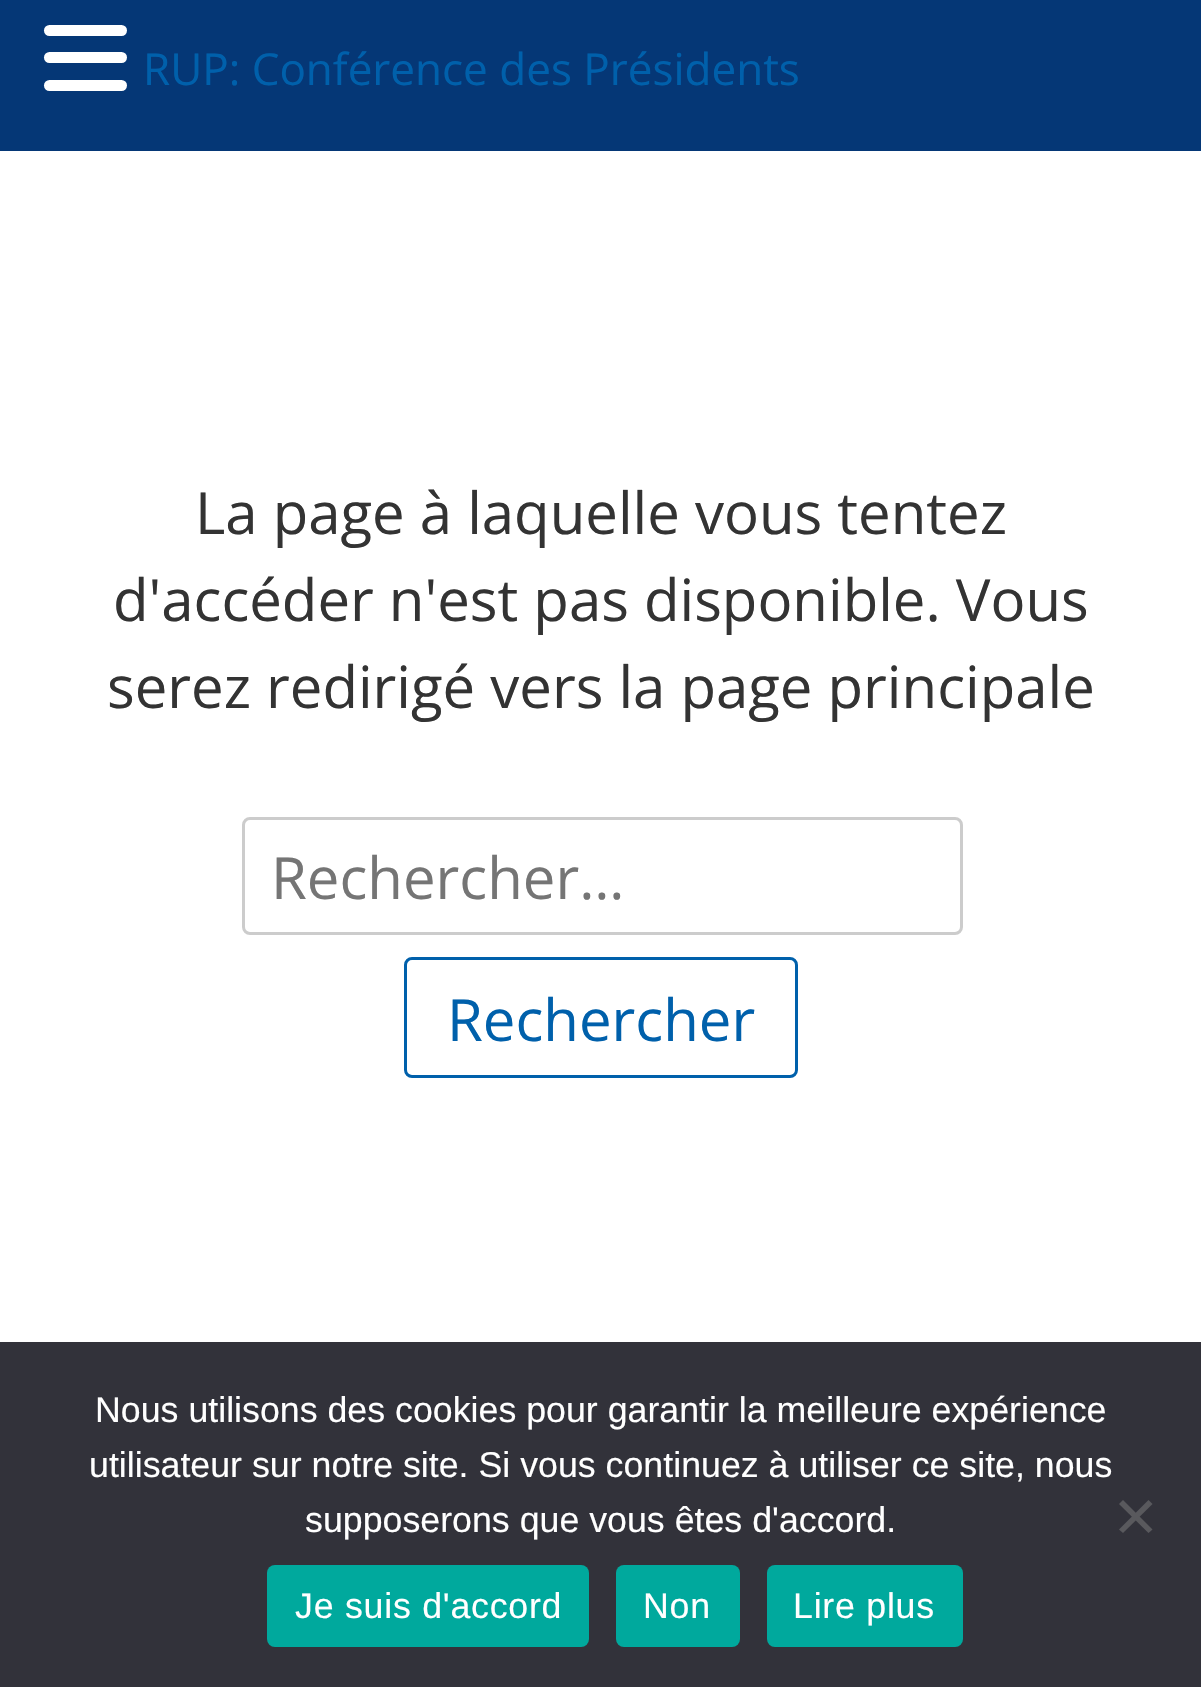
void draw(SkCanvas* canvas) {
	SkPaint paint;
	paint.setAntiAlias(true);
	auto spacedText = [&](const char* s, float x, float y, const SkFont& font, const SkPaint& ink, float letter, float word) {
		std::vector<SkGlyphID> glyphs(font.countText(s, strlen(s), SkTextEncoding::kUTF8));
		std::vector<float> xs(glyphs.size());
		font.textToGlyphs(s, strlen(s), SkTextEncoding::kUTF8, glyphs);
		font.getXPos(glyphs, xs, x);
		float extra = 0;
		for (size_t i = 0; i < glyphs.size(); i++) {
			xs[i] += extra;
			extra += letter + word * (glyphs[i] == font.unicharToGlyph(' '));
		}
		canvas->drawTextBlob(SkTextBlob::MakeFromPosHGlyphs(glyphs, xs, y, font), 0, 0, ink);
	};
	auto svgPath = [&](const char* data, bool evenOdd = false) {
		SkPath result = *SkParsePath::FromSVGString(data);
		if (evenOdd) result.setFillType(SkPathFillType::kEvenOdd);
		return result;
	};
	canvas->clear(0xffffffff);
	paint.setColor(0xff053776);
	canvas->drawRect(SkRect::MakeXYWH(0, 0, 1201, 151), paint);
	paint.setColor(0xffffffff);
	canvas->drawRoundRect(SkRect::MakeXYWH(44, 25, 83, 11), 5.5, 5.5, paint);
	canvas->drawRoundRect(SkRect::MakeXYWH(44, 52, 83, 11), 5.5, 5.5, paint);
	canvas->drawRoundRect(SkRect::MakeXYWH(44, 80, 83, 11), 5.5, 5.5, paint);
	SkFont f1(fontMgr->matchFamilyStyle("Open Sans", SkFontStyle::Normal()), 44);
	f1.setSubpixel(true);
	paint.setColor(0xff0060ab);
	canvas->drawString("RUP: Conférence des Présidents", 143, 85, f1, paint);
	SkFont f2(fontMgr->matchFamilyStyle("Open Sans", SkFontStyle::Normal()), 58.1);
	f2.setSubpixel(true);
	paint.setColor(0xff333333);
	canvas->drawString("La page à laquelle vous tentez", 195, 534, f2, paint);
	canvas->drawString("d'accéder n'est pas disponible. Vous", 113, 621, f2, paint);
	canvas->drawString("serez redirigé vers la page principale", 107, 708, f2, paint);
	paint.setStroke(true);
	paint.setStrokeWidth(3);
	paint.setColor(0xffcccccc);
	canvas->drawRoundRect(SkRect::MakeXYWH(243.5, 818.5, 718, 115), 6.5, 6.5, paint);
	paint.setStroke(false);
	paint.setColor(0xff757575);
	canvas->drawString("Rechercher…", 271, 899, f2, paint);
	paint.setStroke(true);
	paint.setColor(0xff0060ab);
	canvas->drawRoundRect(SkRect::MakeXYWH(405.5, 958.5, 391, 118), 6.5, 6.5, paint);
	paint.setStroke(false);
	canvas->drawString("Rechercher", 447, 1041, f2, paint);
	paint.setColor(0xff32323a);
	canvas->drawRect(SkRect::MakeXYWH(0, 1342, 1201, 345), paint);
	SkFont f3(fontMgr->matchFamilyStyle("Liberation Sans", SkFontStyle::Normal()), 35.75);
	f3.setSubpixel(true);
	paint.setColor(0xffffffff);
	canvas->drawString("Nous utilisons des cookies pour garantir la meilleure expérience", 95, 1422, f3, paint);
	canvas->drawString("utilisateur sur notre site. Si vous continuez à utiliser ce site, nous", 89, 1477, f3, paint);
	canvas->drawString("supposerons que vous êtes d'accord.", 305, 1532, f3, paint);
	paint.setColor(0xff59595d);
	canvas->drawPath(svgPath("M1148.5 1500L1152.5 1504L1123 1533L1119 1529.5Z"), paint);
	canvas->drawPath(svgPath("M1119 1504L1123 1500L1152.5 1529.5L1148.5 1533Z"), paint);
	paint.setColor(0xff00a99d);
	canvas->drawRoundRect(SkRect::MakeXYWH(267, 1565, 322, 82), 8, 8, paint);
	paint.setColor(0xffffffff);
	spacedText("Je suis d'accord", 295, 1618, f3, paint, 0.75, 0);
	paint.setColor(0xff00a99d);
	canvas->drawRoundRect(SkRect::MakeXYWH(616, 1565, 124, 82), 8, 8, paint);
	paint.setColor(0xffffffff);
	spacedText("Non", 643, 1618, f3, paint, 0.75, 0);
	paint.setColor(0xff00a99d);
	canvas->drawRoundRect(SkRect::MakeXYWH(767, 1565, 196, 82), 8, 8, paint);
	paint.setColor(0xffffffff);
	spacedText("Lire plus", 793, 1618, f3, paint, 0.75, 0);
}
